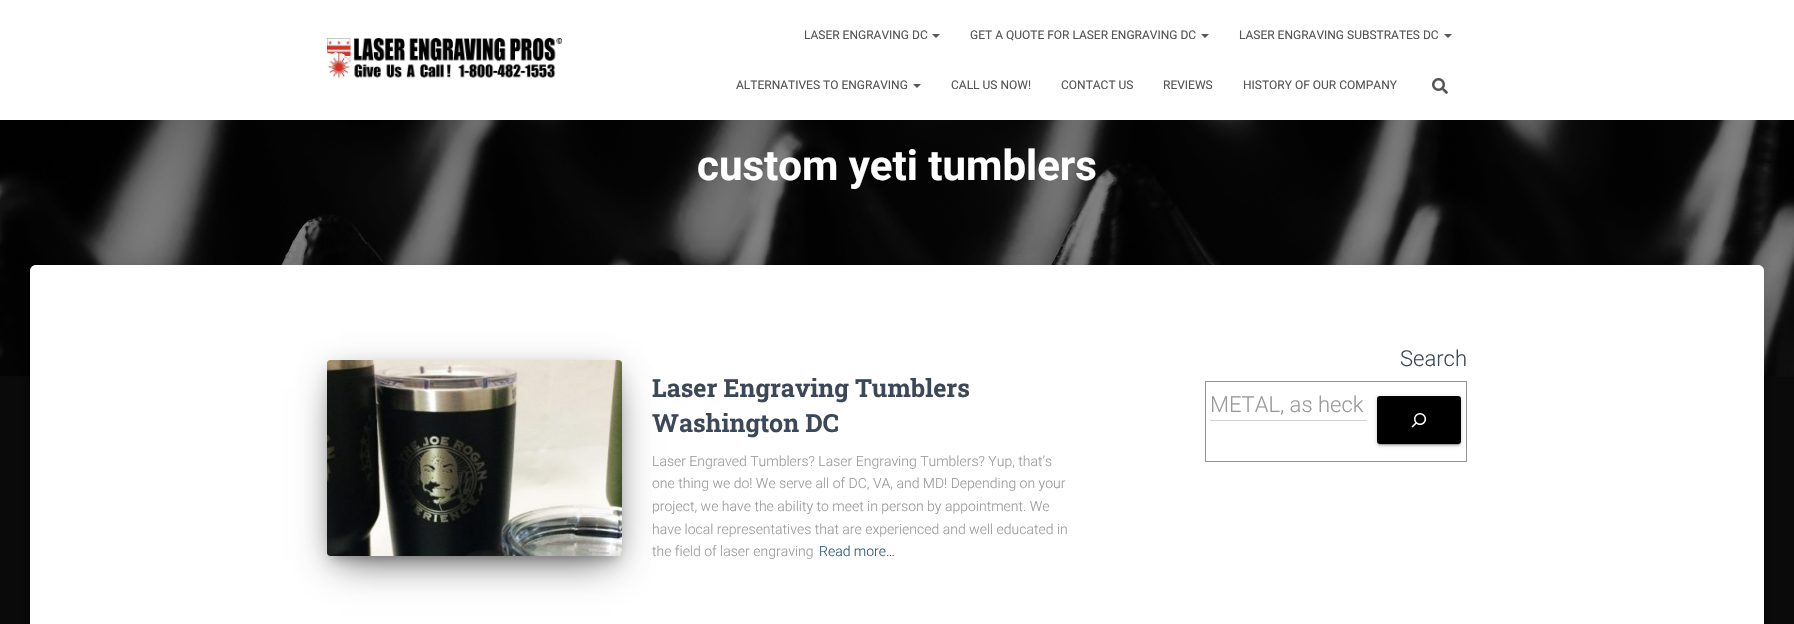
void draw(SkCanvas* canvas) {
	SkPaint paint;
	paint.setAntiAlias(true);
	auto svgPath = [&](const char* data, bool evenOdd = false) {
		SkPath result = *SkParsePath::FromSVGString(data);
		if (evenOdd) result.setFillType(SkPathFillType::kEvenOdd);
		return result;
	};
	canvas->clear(0xff0a0a0a);
	paint.setColor(0xffffffff);
	canvas->drawRect(SkRect::MakeXYWH(0, 0, 1794, 120), paint);
	canvas->drawImageRect(SkImages::DeferredFromEncodedData(SkData::MakeFromFileName("img1.png")), SkRect::MakeXYWH(327, 38, 235, 42), SkSamplingOptions());
	SkFont f1(fontMgr->matchFamilyStyle("Roboto", SkFontStyle::Normal()), 12);
	f1.setSubpixel(true);
	paint.setColor(0xff555555);
	canvas->drawString("LASER ENGRAVING DC", 804, 39, f1, paint);
	canvas->drawPath(svgPath("M932 34H940L936 38Z"), paint);
	canvas->drawString("GET A QUOTE FOR LASER ENGRAVING DC", 970, 39, f1, paint);
	canvas->drawPath(svgPath("M1201 34H1209L1205 38Z"), paint);
	canvas->drawString("LASER ENGRAVING SUBSTRATES DC", 1239, 39, f1, paint);
	canvas->drawPath(svgPath("M1444 34H1452L1448 38Z"), paint);
	canvas->drawString("ALTERNATIVES TO ENGRAVING", 736, 89, f1, paint);
	canvas->drawPath(svgPath("M913 84H921L917 88Z"), paint);
	canvas->drawString("CALL US NOW!", 951, 89, f1, paint);
	canvas->drawString("CONTACT US", 1061, 89, f1, paint);
	canvas->drawString("REVIEWS", 1163, 89, f1, paint);
	canvas->drawString("HISTORY OF OUR COMPANY", 1243, 89, f1, paint);
	canvas->drawImageRect(SkImages::DeferredFromEncodedData(SkData::MakeFromFileName("img2.png")), SkRect::MakeXYWH(1432, 78, 16, 16), SkSamplingOptions());
	canvas->drawImageRect(SkImages::DeferredFromEncodedData(SkData::MakeFromFileName("img3.png")), SkRect::MakeXYWH(0, 120, 1794, 257), SkSamplingOptions());
	SkFont f2(fontMgr->matchFamilyStyle("Roboto", SkFontStyle::Bold()), 42);
	f2.setSubpixel(true);
	paint.setColor(0xffffffff);
	canvas->drawString("custom yeti tumblers", 697, 180, f2, paint);
	paint.setColor(0x33000000);
	paint.setMaskFilter(SkMaskFilter::MakeBlur(kNormal_SkBlurStyle, 5));
	canvas->drawRoundRect(SkRect::MakeXYWH(35, 278, 1724, 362), 1, 1, paint);
	paint.setMaskFilter(nullptr);
	paint.setColor(0x1f000000);
	paint.setMaskFilter(SkMaskFilter::MakeBlur(kNormal_SkBlurStyle, 15));
	canvas->drawRoundRect(SkRect::MakeXYWH(25, 266, 1744, 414), 11, 11, paint);
	paint.setMaskFilter(nullptr);
	paint.setColor(0x24000000);
	paint.setMaskFilter(SkMaskFilter::MakeBlur(kNormal_SkBlurStyle, 12));
	canvas->drawRoundRect(SkRect::MakeXYWH(28, 279, 1738, 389), 8, 8, paint);
	paint.setMaskFilter(nullptr);
	paint.setColor(0xffffffff);
	canvas->drawPath(svgPath("M36 265H1758C1761.5 265 1764 267.5 1764 271V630H30V271C30 267.5 32.5 265 36 265Z"), paint);
	paint.setColor(0x33000000);
	paint.setMaskFilter(SkMaskFilter::MakeBlur(kNormal_SkBlurStyle, 5));
	canvas->drawRect(SkRect::MakeXYWH(332, 373, 285, 186), paint);
	paint.setMaskFilter(nullptr);
	paint.setColor(0x1f000000);
	paint.setMaskFilter(SkMaskFilter::MakeBlur(kNormal_SkBlurStyle, 12.5));
	canvas->drawRoundRect(SkRect::MakeXYWH(327, 364, 295, 196), 3, 3, paint);
	paint.setMaskFilter(nullptr);
	paint.setColor(0x8f000000);
	paint.setMaskFilter(SkMaskFilter::MakeBlur(kNormal_SkBlurStyle, 19));
	canvas->drawRect(SkRect::MakeXYWH(339, 388, 271, 172), paint);
	paint.setMaskFilter(nullptr);
	canvas->drawImageRect(SkImages::DeferredFromEncodedData(SkData::MakeFromFileName("img4.png")), SkRect::MakeXYWH(327, 360, 295, 196), SkSamplingOptions());
	SkFont f3(fontMgr->matchFamilyStyle("Roboto Slab", SkFontStyle::Bold()), 25);
	f3.setSubpixel(true);
	paint.setColor(0xff3c4858);
	canvas->drawString("Laser Engraving Tumblers", 652, 397, f3, paint);
	canvas->drawString("Washington DC", 652, 432, f3, paint);
	SkFont f4(fontMgr->matchFamilyStyle("Roboto", SkFontStyle(300, SkFontStyle::kNormal_Width, SkFontStyle::kUpright_Slant)), 14);
	f4.setSubpixel(true);
	paint.setColor(0xff999999);
	canvas->drawString("Laser Engraved Tumblers? Laser Engraving Tumblers? Yup, that’s", 652, 466, f4, paint);
	canvas->drawString("one thing we do! We serve all of DC, VA, and MD! Depending on your", 652, 488, f4, paint);
	canvas->drawString("project, we have the ability to meet in person by appointment. We", 652, 511, f4, paint);
	canvas->drawString("have local representatives that are experienced and well educated in", 652, 534, f4, paint);
	canvas->drawString("the field of laser engraving", 652, 556, f4, paint);
	paint.setColor(0xff23527c);
	canvas->drawString("Read more…", 819, 556, f4, paint);
	SkFont f5(fontMgr->matchFamilyStyle("Roboto", SkFontStyle(300, SkFontStyle::kNormal_Width, SkFontStyle::kUpright_Slant)), 22);
	f5.setSubpixel(true);
	paint.setColor(0xff3c4858);
	canvas->drawString("Search", 1400, 366, f5, paint);
	paint.setStroke(true);
	paint.setStrokeWidth(1);
	paint.setColor(0xff949494);
	canvas->drawRect(SkRect::MakeXYWH(1205.5, 381.5, 261, 80), paint);
	paint.setStroke(false);
	paint.setColor(0xffd2d2d2);
	canvas->drawRect(SkRect::MakeXYWH(1210, 420, 157, 1), paint);
	paint.setColor(0xff999999);
	canvas->drawString("METAL, as heck", 1210, 412, f5, paint);
	paint.setColor(0x1f000000);
	paint.setMaskFilter(SkMaskFilter::MakeBlur(kNormal_SkBlurStyle, 2.5));
	canvas->drawRoundRect(SkRect::MakeXYWH(1377, 397, 84, 48), 3, 3, paint);
	paint.setMaskFilter(nullptr);
	paint.setColor(0x33000000);
	paint.setMaskFilter(SkMaskFilter::MakeBlur(kNormal_SkBlurStyle, 0.5));
	canvas->drawRoundRect(SkRect::MakeXYWH(1379, 401, 80, 44), 1, 1, paint);
	paint.setMaskFilter(nullptr);
	paint.setColor(0x24000000);
	paint.setMaskFilter(SkMaskFilter::MakeBlur(kNormal_SkBlurStyle, 1));
	canvas->drawRoundRect(SkRect::MakeXYWH(1377, 398, 84, 48), 3, 3, paint);
	paint.setMaskFilter(nullptr);
	paint.setColor(0xff000000);
	canvas->drawRoundRect(SkRect::MakeXYWH(1377, 396, 84, 48), 3, 3, paint);
	canvas->drawImageRect(SkImages::DeferredFromEncodedData(SkData::MakeFromFileName("img5.png")), SkRect::MakeXYWH(1411, 413, 16, 15), SkSamplingOptions());
}
